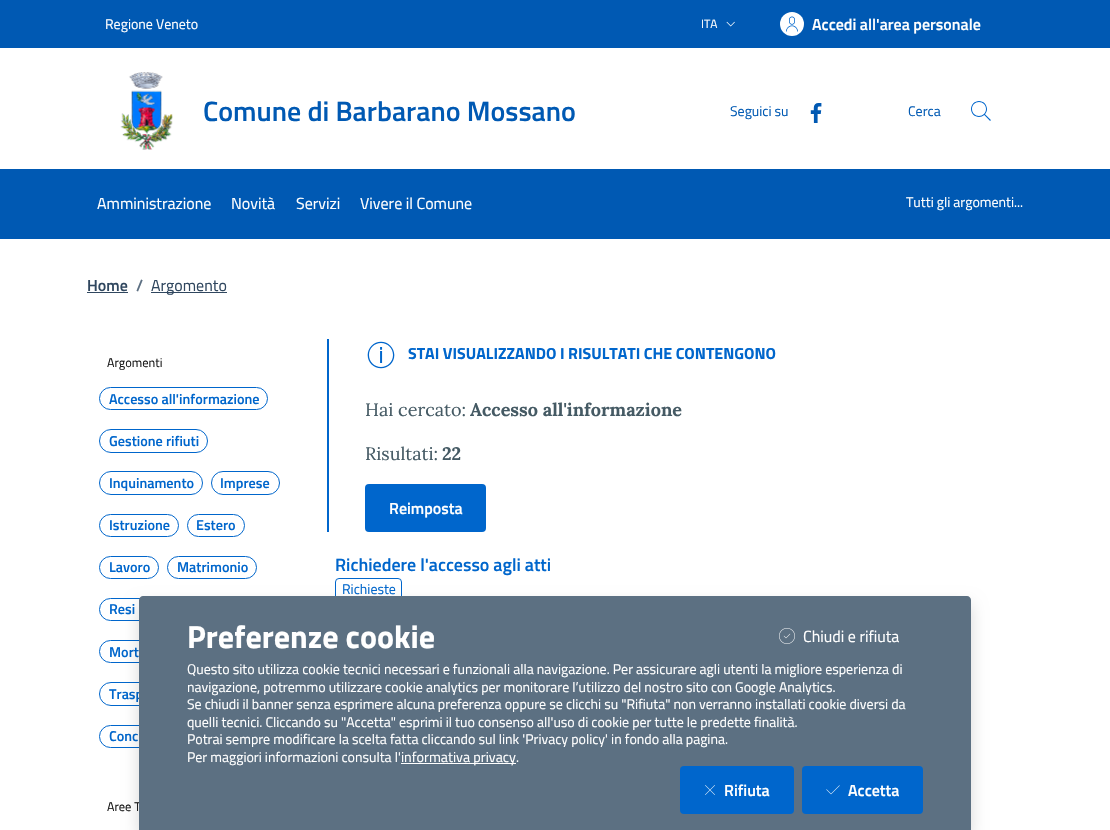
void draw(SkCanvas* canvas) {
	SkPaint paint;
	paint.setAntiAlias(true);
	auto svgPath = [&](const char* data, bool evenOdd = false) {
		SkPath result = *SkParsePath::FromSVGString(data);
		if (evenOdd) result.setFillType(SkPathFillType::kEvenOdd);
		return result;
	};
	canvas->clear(0xffffffff);
	paint.setColor(0xff0059b3);
	canvas->drawRect(SkRect::MakeXYWH(0, 0, 1110, 48), paint);
	SkFont f1(fontMgr->matchFamilyStyle("Titillium Web", SkFontStyle::Normal()), 14);
	f1.setSubpixel(true);
	paint.setColor(0xffffffff);
	canvas->drawString("Regione Veneto", 105, 29, f1, paint);
	SkFont f2(fontMgr->matchFamilyStyle("Titillium Web", SkFontStyle::Normal()), 12);
	f2.setSubpixel(true);
	canvas->drawString("ITA", 701, 28, f2, paint);
	canvas->drawImageRect(SkImages::DeferredFromEncodedData(SkData::MakeFromFileName("img1.png")), SkRect::MakeXYWH(726, 21, 9, 6), SkSamplingOptions());
	canvas->drawCircle(792, 24, 12, paint);
	canvas->drawImageRect(SkImages::DeferredFromEncodedData(SkData::MakeFromFileName("img2.png")), SkRect::MakeXYWH(786, 16, 12, 16), SkSamplingOptions());
	SkFont f3(fontMgr->matchFamilyStyle("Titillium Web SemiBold", SkFontStyle(600, SkFontStyle::kNormal_Width, SkFontStyle::kUpright_Slant)), 16);
	f3.setSubpixel(true);
	canvas->drawString("Accedi all'area personale", 812, 30, f3, paint);
	canvas->drawImageRect(SkImages::DeferredFromEncodedData(SkData::MakeFromFileName("img3.png")), SkRect::MakeXYWH(120, 72, 53, 78), SkSamplingOptions());
	SkFont f4(fontMgr->matchFamilyStyle("Titillium Web SemiBold", SkFontStyle(600, SkFontStyle::kNormal_Width, SkFontStyle::kUpright_Slant)), 28);
	f4.setSubpixel(true);
	paint.setColor(0xff0059b3);
	canvas->drawString("Comune di Barbarano Mossano", 203, 121, f4, paint);
	canvas->drawString("Seguici su", 730, 116, f1, paint);
	canvas->drawImageRect(SkImages::DeferredFromEncodedData(SkData::MakeFromFileName("img4.png")), SkRect::MakeXYWH(810, 103, 12, 20), SkSamplingOptions());
	canvas->drawString("Cerca", 908, 116, f1, paint);
	canvas->drawImageRect(SkImages::DeferredFromEncodedData(SkData::MakeFromFileName("img5.png")), SkRect::MakeXYWH(971, 101, 20, 20), SkSamplingOptions());
	canvas->drawRect(SkRect::MakeXYWH(0, 169, 1110, 70), paint);
	SkFont f5(fontMgr->matchFamilyStyle("Titillium Web", SkFontStyle::Normal()), 16);
	f5.setSubpixel(true);
	paint.setColor(0xffffffff);
	canvas->drawString("Amministrazione", 97, 209, f5, paint);
	canvas->drawString("Novità", 231, 209, f5, paint);
	canvas->drawString("Servizi", 296, 209, f5, paint);
	canvas->drawString("Vivere il Comune", 360, 209, f5, paint);
	canvas->drawString("Tutti gli argomenti...", 906, 207, f1, paint);
	paint.setColor(0xff30475f);
	canvas->drawString("Home", 87, 291, f3, paint);
	canvas->drawRect(SkRect::MakeXYWH(87, 292, 41, 1), paint);
	paint.setColor(0xff5d7083);
	canvas->drawString("/", 136, 291, f3, paint);
	paint.setColor(0xff30475f);
	canvas->drawRect(SkRect::MakeXYWH(151, 292, 76, 1), paint);
	canvas->drawString("Argomento", 151, 291, f5, paint);
	SkFont f6(fontMgr->matchFamilyStyle("Titillium Web", SkFontStyle::Normal()), 12.5);
	f6.setSubpixel(true);
	paint.setColor(0xff191919);
	canvas->drawString("Argomenti", 107, 367, f6, paint);
	paint.setStroke(true);
	paint.setStrokeWidth(1);
	paint.setColor(0xff0066cc);
	canvas->drawRoundRect(SkRect::MakeXYWH(99.5, 387.5, 168, 22), 11, 11, paint);
	SkFont f7(fontMgr->matchFamilyStyle("Titillium Web SemiBold", SkFontStyle(600, SkFontStyle::kNormal_Width, SkFontStyle::kUpright_Slant)), 14.25);
	f7.setSubpixel(true);
	paint.setStroke(false);
	canvas->drawString("Accesso all'informazione", 109, 404, f7, paint);
	paint.setStroke(true);
	canvas->drawRoundRect(SkRect::MakeXYWH(99.5, 429.5, 108, 23), 11.5, 11.5, paint);
	paint.setStroke(false);
	canvas->drawString("Gestione rifiuti", 109, 446, f7, paint);
	paint.setStroke(true);
	canvas->drawRoundRect(SkRect::MakeXYWH(99.5, 471.5, 103, 23), 11.5, 11.5, paint);
	paint.setStroke(false);
	canvas->drawString("Inquinamento", 109, 488, f7, paint);
	paint.setStroke(true);
	canvas->drawRoundRect(SkRect::MakeXYWH(211.5, 471.5, 68, 23), 11.5, 11.5, paint);
	paint.setStroke(false);
	canvas->drawString("Imprese", 220, 488, f7, paint);
	paint.setStroke(true);
	canvas->drawRoundRect(SkRect::MakeXYWH(99.5, 514.5, 79, 22), 11, 11, paint);
	paint.setStroke(false);
	canvas->drawString("Istruzione", 109, 530, f7, paint);
	paint.setStroke(true);
	canvas->drawRoundRect(SkRect::MakeXYWH(187.5, 514.5, 57, 22), 11, 11, paint);
	paint.setStroke(false);
	canvas->drawString("Estero", 196, 530, f7, paint);
	paint.setStroke(true);
	canvas->drawRoundRect(SkRect::MakeXYWH(99.5, 556.5, 59, 22), 11, 11, paint);
	paint.setStroke(false);
	canvas->drawString("Lavoro", 109, 572, f7, paint);
	paint.setStroke(true);
	canvas->drawRoundRect(SkRect::MakeXYWH(167.5, 556.5, 89, 22), 11, 11, paint);
	paint.setStroke(false);
	canvas->drawString("Matrimonio", 177, 572, f7, paint);
	paint.setStroke(true);
	canvas->drawRoundRect(SkRect::MakeXYWH(99.5, 598.5, 81, 22), 11, 11, paint);
	paint.setStroke(false);
	canvas->drawString("Resi", 109, 614, f7, paint);
	paint.setStroke(true);
	canvas->drawRoundRect(SkRect::MakeXYWH(99.5, 640.5, 55, 22), 11, 11, paint);
	paint.setStroke(false);
	canvas->drawString("Mort", 109, 657, f7, paint);
	paint.setStroke(true);
	canvas->drawRoundRect(SkRect::MakeXYWH(99.5, 682.5, 189, 23), 11.5, 11.5, paint);
	paint.setStroke(false);
	canvas->drawString("Trasp", 109, 699, f7, paint);
	paint.setStroke(true);
	canvas->drawRoundRect(SkRect::MakeXYWH(99.5, 725.5, 70, 22), 11, 11, paint);
	paint.setStroke(false);
	canvas->drawString("Conc", 109, 741, f7, paint);
	paint.setColor(0xff191919);
	canvas->drawString("Aree T", 107, 811, f6, paint);
	paint.setColor(0xff0066cc);
	canvas->drawRect(SkRect::MakeXYWH(327, 339, 2, 193), paint);
	canvas->drawImageRect(SkImages::DeferredFromEncodedData(SkData::MakeFromFileName("img6.png")), SkRect::MakeXYWH(367, 341, 28, 28), SkSamplingOptions());
	SkFont f8(fontMgr->matchFamilyStyle("Titillium Web", SkFontStyle::Bold()), 16);
	f8.setSubpixel(true);
	canvas->drawString("STAI VISUALIZZANDO I RISULTATI CHE CONTENGONO", 408, 359, f8, paint);
	SkFont f9(fontMgr->matchFamilyStyle("Lora", SkFontStyle::Normal()), 18);
	f9.setSubpixel(true);
	paint.setColor(0xff455a64);
	canvas->drawString("Hai cercato:", 365, 416, f9, paint);
	SkFont f10(fontMgr->matchFamilyStyle("Lora", SkFontStyle::Bold()), 18);
	f10.setSubpixel(true);
	canvas->drawString("Accesso all'informazione", 470, 416, f10, paint);
	canvas->drawString("Risultati:", 365, 460, f9, paint);
	canvas->drawString("22", 442, 460, f10, paint);
	paint.setColor(0xff0066cc);
	canvas->drawRoundRect(SkRect::MakeXYWH(365, 484, 121, 48), 4, 4, paint);
	paint.setColor(0xffffffff);
	canvas->drawString("Reimposta", 389, 514, f3, paint);
	SkFont f11(fontMgr->matchFamilyStyle("Titillium Web SemiBold", SkFontStyle(600, SkFontStyle::kNormal_Width, SkFontStyle::kUpright_Slant)), 18);
	f11.setSubpixel(true);
	paint.setColor(0xff0066cc);
	canvas->drawString("Richiedere l'accesso agli atti", 335, 571, f11, paint);
	paint.setStroke(true);
	canvas->drawRoundRect(SkRect::MakeXYWH(335.5, 578.5, 66, 22), 3.5, 3.5, paint);
	paint.setStroke(false);
	canvas->drawString("Richieste", 342, 594, f1, paint);
	paint.setColor(0x26000000);
	paint.setMaskFilter(SkMaskFilter::MakeBlur(kNormal_SkBlurStyle, 8));
	canvas->drawRoundRect(SkRect::MakeXYWH(139, 604, 832, 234), 4, 4, paint);
	paint.setMaskFilter(nullptr);
	paint.setColor(0xff5c7082);
	canvas->drawPath(svgPath("M143 596H967C969 596 971 598 971 600V830H139V600C139 598 141 596 143 596Z"), paint);
	SkFont f12(fontMgr->matchFamilyStyle("Titillium Web", SkFontStyle::Bold()), 32);
	f12.setSubpixel(true);
	paint.setColor(0xffffffff);
	canvas->drawString("Preferenze cookie", 187, 648, f12, paint);
	canvas->drawImageRect(SkImages::DeferredFromEncodedData(SkData::MakeFromFileName("img7.png")), SkRect::MakeXYWH(779, 628, 16, 16), SkSamplingOptions());
	canvas->drawString("Chiudi e rifiuta", 803, 642, f5, paint);
	canvas->drawString("Questo sito utilizza cookie tecnici necessari e funzionali alla navigazione. Per assicurare agli utenti la migliore esperienza di", 187, 674, f1, paint);
	canvas->drawString("navigazione, potremmo utilizzare cookie analytics per monitorare l’utilizzo del nostro sito con Google Analytics.", 187, 692, f1, paint);
	canvas->drawString("Se chiudi il banner senza esprimere alcuna preferenza oppure se clicchi su \"Rifiuta\" non verranno installati cookie diversi da", 187, 709, f1, paint);
	canvas->drawString("quelli tecnici. Cliccando su \"Accetta\" esprimi il tuo consenso all'uso di cookie per tutte le predette finalità.", 187, 727, f1, paint);
	canvas->drawString("Potrai sempre modificare la scelta fatta cliccando sul link 'Privacy policy' in fondo alla pagina.", 187, 744, f1, paint);
	canvas->drawString("Per maggiori informazioni consulta l'", 187, 762, f1, paint);
	canvas->drawRect(SkRect::MakeXYWH(401, 763, 115, 1), paint);
	SkFont f13(fontMgr->matchFamilyStyle("Titillium Web", SkFontStyle::Normal()), 14.25);
	f13.setSubpixel(true);
	canvas->drawString("informativa privacy", 401, 762, f13, paint);
	canvas->drawString(".", 516, 762, f1, paint);
	paint.setColor(0xff0066cc);
	canvas->drawRoundRect(SkRect::MakeXYWH(680, 766, 114, 48), 4, 4, paint);
	canvas->drawImageRect(SkImages::DeferredFromEncodedData(SkData::MakeFromFileName("img8.png")), SkRect::MakeXYWH(705, 785, 10, 10), SkSamplingOptions());
	paint.setColor(0xffffffff);
	canvas->drawString("Rifiuta", 724, 796, f3, paint);
	paint.setColor(0xff0066cc);
	canvas->drawRoundRect(SkRect::MakeXYWH(802, 766, 121, 48), 4, 4, paint);
	canvas->drawImageRect(SkImages::DeferredFromEncodedData(SkData::MakeFromFileName("img9.png")), SkRect::MakeXYWH(826, 785, 14, 10), SkSamplingOptions());
	paint.setColor(0xffffffff);
	canvas->drawString("Accetta", 848, 796, f3, paint);
}
